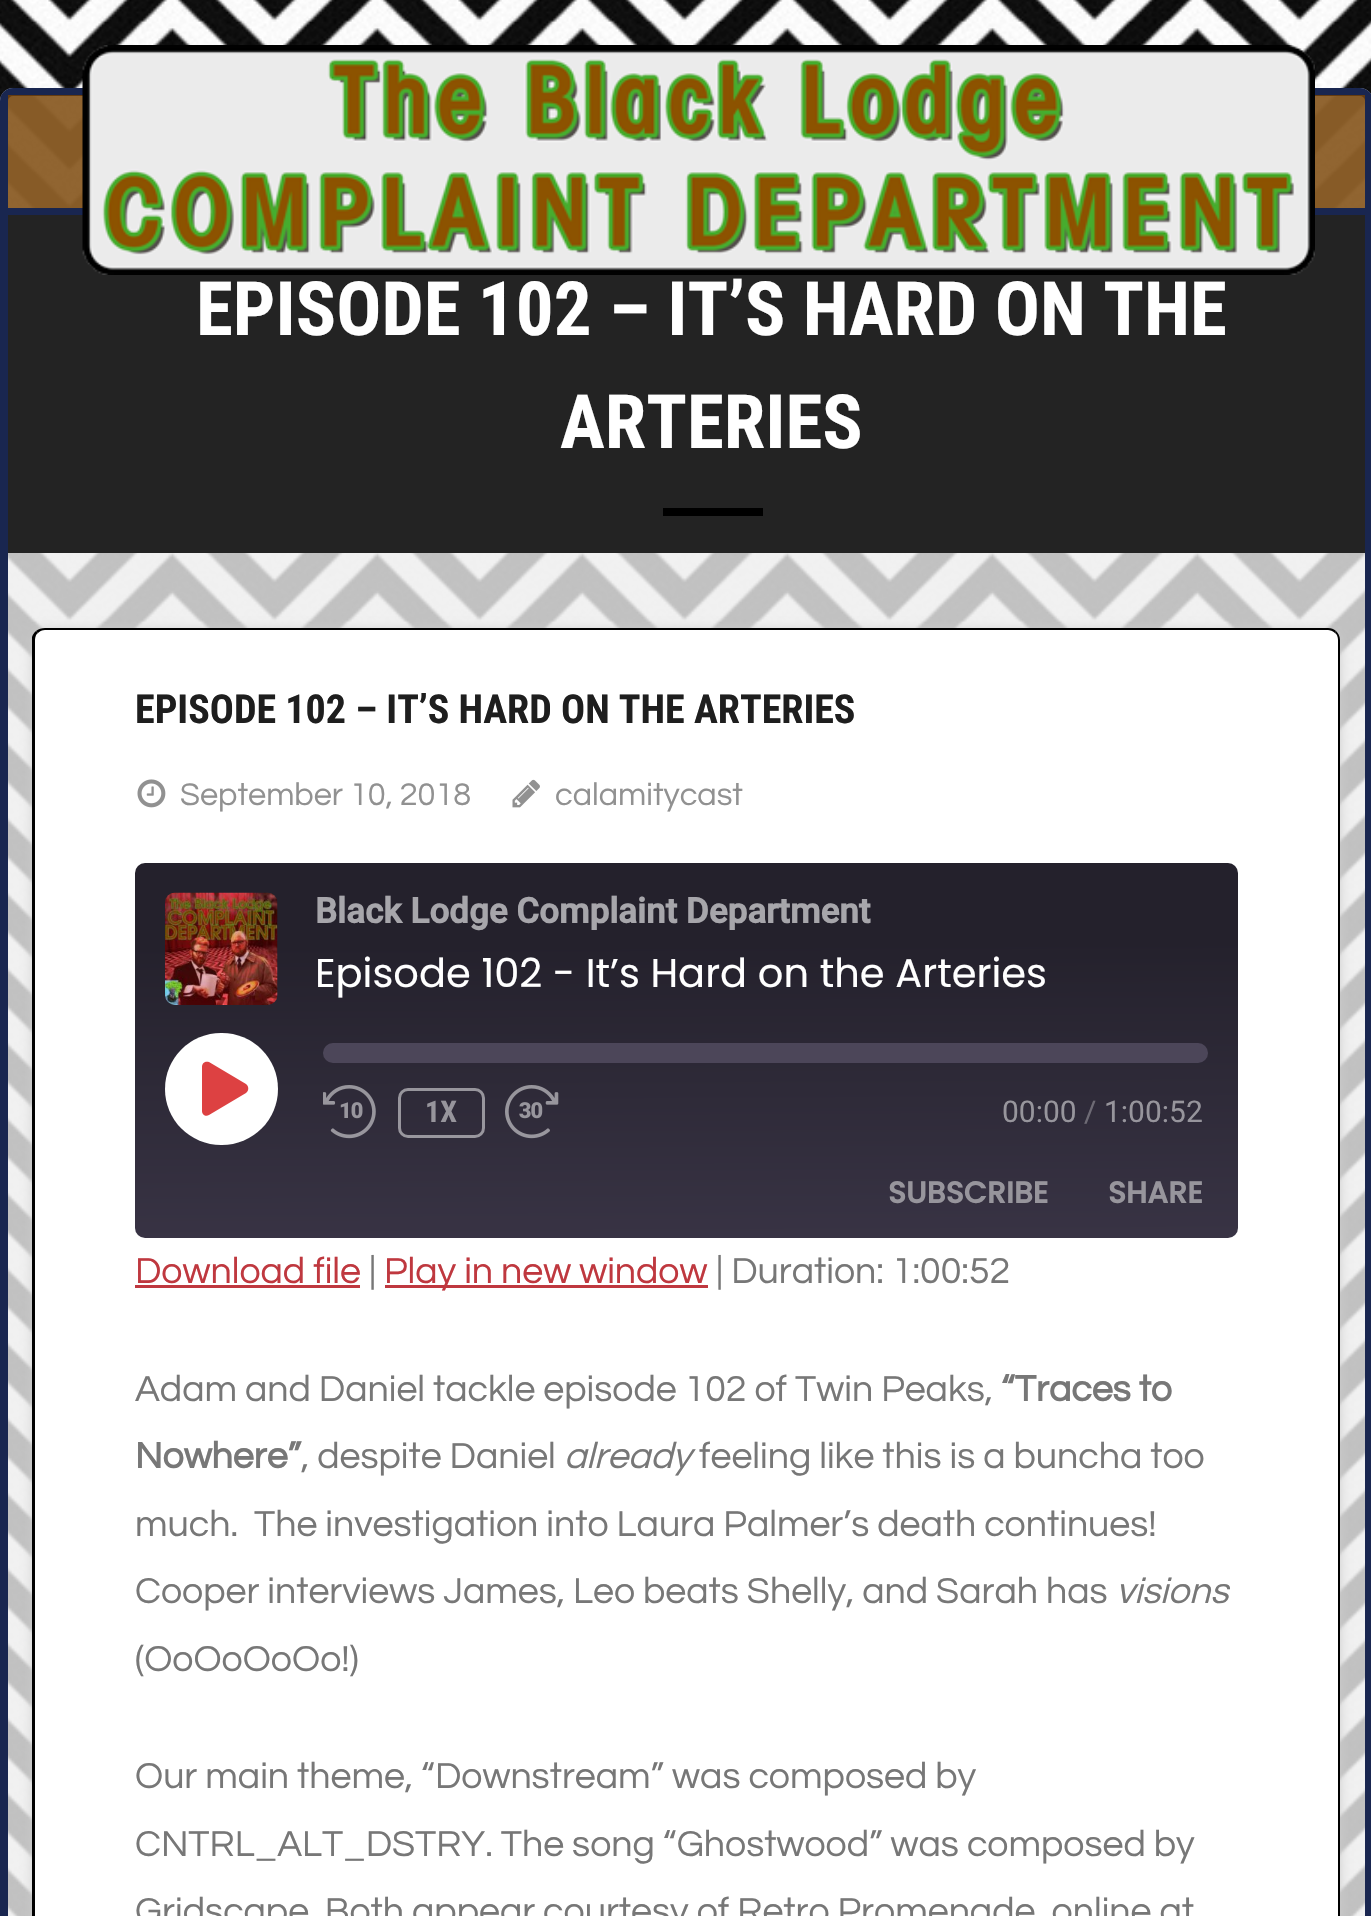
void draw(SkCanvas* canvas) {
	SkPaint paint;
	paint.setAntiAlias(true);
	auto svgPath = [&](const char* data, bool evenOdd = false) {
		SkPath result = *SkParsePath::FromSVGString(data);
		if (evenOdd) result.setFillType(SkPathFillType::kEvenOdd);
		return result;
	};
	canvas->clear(0xffffffff);
	canvas->drawImageRect(SkImages::DeferredFromEncodedData(SkData::MakeFromFileName("img1.png")), SkRect::MakeXYWH(0, 0, 1371, 1916), SkSamplingOptions());
	paint.setStroke(true);
	paint.setStrokeWidth(8);
	paint.setColor(0xff192650);
	canvas->drawRoundRect(SkRect::MakeXYWH(4, 92, 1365, 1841), 9, 9, paint);
	paint.setStroke(false);
	paint.setColor(0xcc784100);
	canvas->drawRect(SkRect::MakeXYWH(8, 95, 1357, 113), paint);
	paint.setColor(0xff192650);
	canvas->drawRect(SkRect::MakeXYWH(8, 208, 1357, 7), paint);
	paint.setColor(0xff232323);
	canvas->drawRect(SkRect::MakeXYWH(8, 215, 1357, 338), paint);
	canvas->drawImageRect(SkImages::DeferredFromEncodedData(SkData::MakeFromFileName("img2.png")), SkRect::MakeXYWH(82, 45, 1233, 230), SkSamplingOptions());
	SkFont f1(fontMgr->matchFamilyStyle("Roboto Condensed", SkFontStyle::Bold()), 75);
	f1.setSubpixel(true);
	paint.setColor(0xffffffff);
	canvas->drawString("EPISODE 102 – IT’S HARD ON THE", 196, 335, f1, paint);
	canvas->drawString("ARTERIES", 560, 448, f1, paint);
	paint.setColor(0xff000000);
	canvas->drawRect(SkRect::MakeXYWH(663, 508, 100, 8), paint);
	paint.setColor(0xffcccccc);
	paint.setMaskFilter(SkMaskFilter::MakeBlur(kNormal_SkBlurStyle, 6));
	canvas->drawRoundRect(SkRect::MakeXYWH(33, 630, 1307, 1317), 13, 13, paint);
	paint.setMaskFilter(nullptr);
	paint.setColor(0xffffffff);
	canvas->drawPath(svgPath("M45 630H1328C1333 630 1338 634 1338 640V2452C1338 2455 1333 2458 1328 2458H45C39 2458 35 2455 35 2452V640C35 634 39 630 45 630Z"), paint);
	paint.setColor(0xff000000);
	canvas->drawPath(svgPath("M45 628C42 628 38 629 36 631L38 633C40 631 42 630 45 630H1328C1330 630 1333 631 1335 633L1336 631C1334 629 1331 628 1328 628Z"), paint);
	canvas->drawPath(svgPath("M1336 631C1338 633 1340 636 1340 640V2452C1340 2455 1339 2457 1338 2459L1337 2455C1337 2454 1338 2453 1338 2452V640C1338 637 1337 634 1335 633Z"), paint);
	canvas->drawPath(svgPath("M32 637C33 634 34 633 36 631L38 633C36 634 35 637 35 640V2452L36 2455L34 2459L32 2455Z"), paint);
	SkFont f2(fontMgr->matchFamilyStyle("Roboto Condensed", SkFontStyle::Bold()), 40);
	f2.setSubpixel(true);
	paint.setColor(0xff1e1e1e);
	canvas->drawString("EPISODE 102 – IT’S HARD ON THE ARTERIES", 135, 723, f2, paint);
	canvas->drawImageRect(SkImages::DeferredFromEncodedData(SkData::MakeFromFileName("img3.png")), SkRect::MakeXYWH(137, 779, 29, 29), SkSamplingOptions());
	SkFont f3(fontMgr->matchFamilyStyle("Questrial", SkFontStyle::Normal()), 32.5);
	f3.setSubpixel(true);
	paint.setColor(0xff919191);
	canvas->drawString("September 10, 2018", 180, 805, f3, paint);
	canvas->drawImageRect(SkImages::DeferredFromEncodedData(SkData::MakeFromFileName("img4.png")), SkRect::MakeXYWH(512, 779, 28, 29), SkSamplingOptions());
	canvas->drawString("calamitycast", 555, 805, f3, paint);
	{
		const SkColor colors[] = {0xff383344, 0xff24212c};
		const float stops[] = {0.01, 0.78};
		const SkPoint ends[] = {{687, 1241}, {685, 859}};
		paint.setShader(SkGradientShader::MakeLinear(ends, colors, stops, 2, SkTileMode::kClamp));
		paint.setAlpha(255);
	}
	canvas->drawRoundRect(SkRect::MakeXYWH(135, 863, 1103, 375), 10, 10, paint);
	canvas->drawImageRect(SkImages::DeferredFromEncodedData(SkData::MakeFromFileName("img5.png")), SkRect::MakeXYWH(165, 892, 113, 113), SkSamplingOptions());
	SkFont f4(fontMgr->matchFamilyStyle("Roboto", SkFontStyle::Bold()), 35);
	f4.setSubpixel(true);
	paint.setShader(nullptr);
	paint.setColor(0xffa7a6ab);
	canvas->drawString("Black Lodge Complaint Department", 315, 923, f4, paint);
	SkFont f5(fontMgr->matchFamilyStyle("Poppins", SkFontStyle::Normal()), 40);
	f5.setSubpixel(true);
	paint.setColor(0xffffffff);
	canvas->drawString("Episode 102 - It’s Hard on the Arteries", 315, 987, f5, paint);
	canvas->drawRoundRect(SkRect::MakeXYWH(165, 1033, 113, 112), 56, 56, paint);
	paint.setColor(0xffdd4142);
	canvas->drawPath(svgPath("M246 1084L209 1062C206 1061 202 1062 202 1067V1111C202 1115 206 1117 209 1115L246 1093C249 1091 249 1086 246 1084Z"), paint);
	paint.setColor(0xff4c4659);
	canvas->drawRoundRect(SkRect::MakeXYWH(323, 1043, 885, 20), 10, 10, paint);
	canvas->drawImageRect(SkImages::DeferredFromEncodedData(SkData::MakeFromFileName("img6.png")), SkRect::MakeXYWH(323, 1085, 53, 54), SkSamplingOptions());
	paint.setStroke(true);
	paint.setStrokeWidth(3);
	paint.setColor(0x80ffffff);
	canvas->drawRoundRect(SkRect::MakeXYWH(399.5, 1089.5, 84, 47), 8.5, 8.5, paint);
	SkFont f6(fontMgr->matchFamilyStyle("Roboto Condensed", SkFontStyle::Bold()), 30);
	f6.setSubpixel(true);
	paint.setStroke(false);
	paint.setColor(0xff97959c);
	canvas->drawString("1X", 425, 1122, f6, paint);
	canvas->drawImageRect(SkImages::DeferredFromEncodedData(SkData::MakeFromFileName("img7.png")), SkRect::MakeXYWH(505, 1085, 54, 54), SkSamplingOptions());
	SkFont f7(fontMgr->matchFamilyStyle("Roboto", SkFontStyle::Normal()), 30);
	f7.setSubpixel(true);
	canvas->drawString("00:00", 1002, 1122, f7, paint);
	paint.setColor(0xff6e6b75);
	canvas->drawString("/", 1084, 1122, f7, paint);
	paint.setColor(0xff97959c);
	canvas->drawString("1:00:52", 1104, 1122, f7, paint);
	SkFont f8(fontMgr->matchFamilyStyle("Poppins", SkFontStyle::Bold()), 30);
	f8.setSubpixel(true);
	canvas->drawString("SUBSCRIBE", 888, 1203, f8, paint);
	canvas->drawString("SHARE", 1108, 1203, f8, paint);
	SkFont f9(fontMgr->matchFamilyStyle("Questrial", SkFontStyle::Normal()), 37.5);
	f9.setSubpixel(true);
	paint.setColor(0xffbf383f);
	canvas->drawString("Download file", 135, 1283, f9, paint);
	canvas->drawRect(SkRect::MakeXYWH(135, 1285, 225, 3), paint);
	paint.setColor(0xff777777);
	canvas->drawString("|", 369, 1283, f9, paint);
	paint.setColor(0xffbf383f);
	canvas->drawRect(SkRect::MakeXYWH(385, 1285, 323, 3), paint);
	canvas->drawString("Play in new window", 384, 1283, f9, paint);
	paint.setColor(0xff777777);
	canvas->drawString("| Duration: 1:00:52", 716, 1283, f9, paint);
	canvas->drawString("Adam and Daniel tackle episode 102 of Twin Peaks,", 135, 1401, f9, paint);
	SkFont f10(fontMgr->matchFamilyStyle("Questrial", SkFontStyle::Bold()), 37.5);
	f10.setSubpixel(true);
	canvas->drawString("“Traces to", 1001, 1401, f10, paint);
	canvas->drawString("Nowhere”", 135, 1468, f10, paint);
	canvas->drawString(", despite Daniel", 301, 1468, f9, paint);
	SkFont f11(fontMgr->matchFamilyStyle("Questrial", SkFontStyle::Italic()), 37.5);
	f11.setSubpixel(true);
	canvas->drawString("already", 564, 1468, f11, paint);
	canvas->drawString("feeling like this is a buncha too", 699, 1468, f9, paint);
	canvas->drawString("much.  The investigation into Laura Palmer’s death continues!", 135, 1536, f9, paint);
	canvas->drawString("Cooper interviews James, Leo beats Shelly, and Sarah has", 135, 1603, f9, paint);
	canvas->drawString("visions", 1116, 1603, f11, paint);
	canvas->drawString("(OoOoOoOo!)", 135, 1671, f9, paint);
	canvas->drawString("Our main theme, “Downstream” was composed by", 135, 1788, f9, paint);
	canvas->drawString("CNTRL_ALT_DSTRY. The song “Ghostwood” was composed by", 135, 1856, f9, paint);
	canvas->drawString("Gridscape. Both appear courtesy of Retro Promenade, online at", 135, 1923, f9, paint);
}
